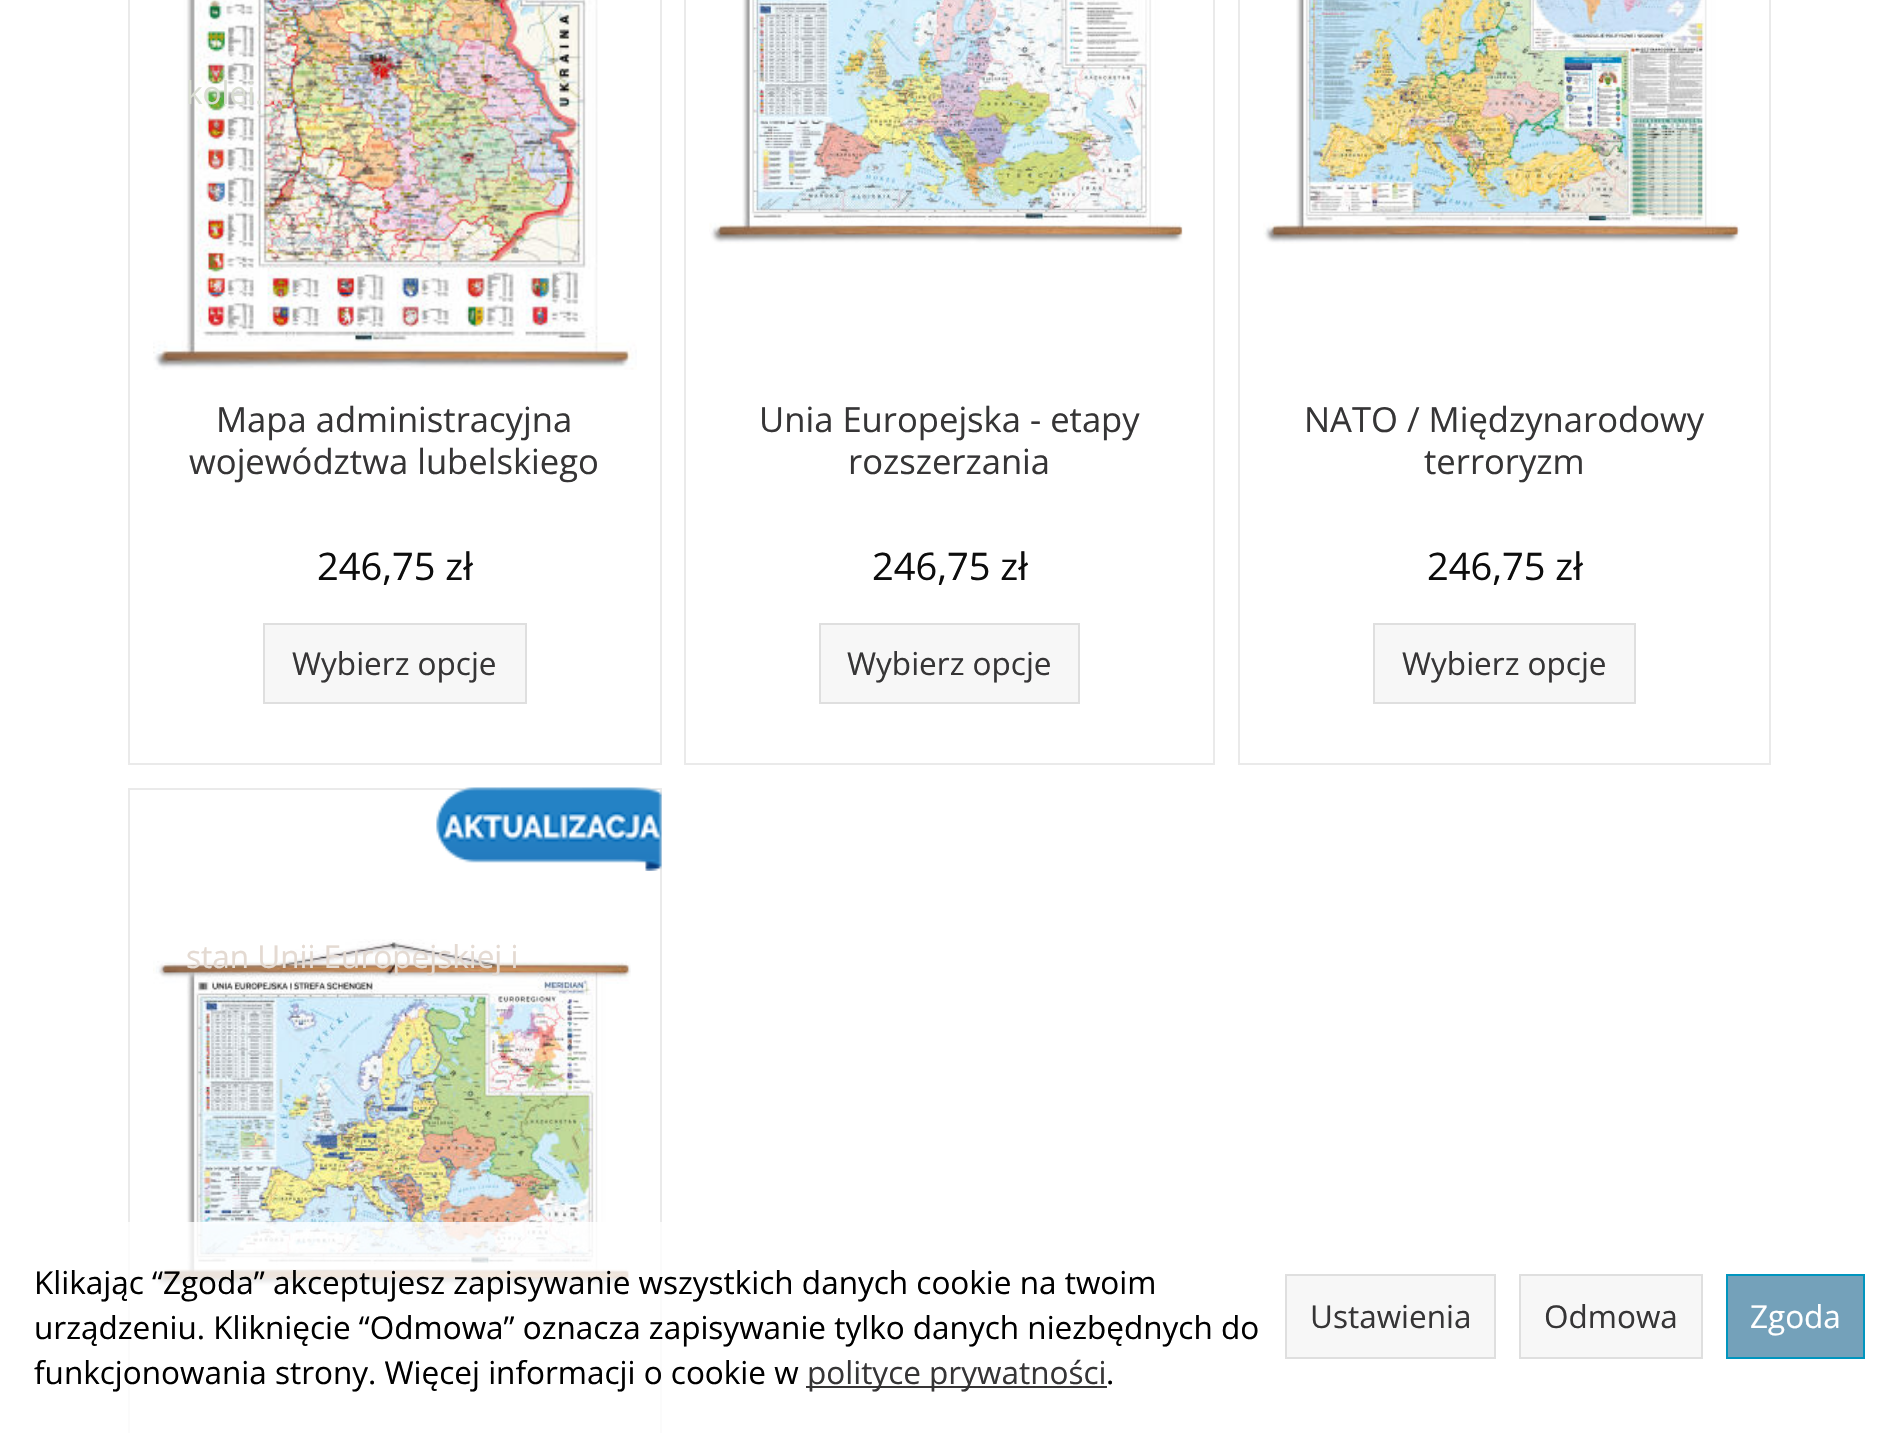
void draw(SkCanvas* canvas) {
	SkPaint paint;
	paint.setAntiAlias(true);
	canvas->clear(0xffffffff);
	paint.setStroke(true);
	paint.setStrokeWidth(2);
	paint.setColor(0xffeaeaea);
	canvas->drawRect(SkRect::MakeXYWH(129, -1, 532, 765), paint);
	canvas->drawImageRect(SkImages::DeferredFromEncodedData(SkData::MakeFromFileName("img1.png")), SkRect::MakeXYWH(153, 0, 484, 370), SkSamplingOptions());
	SkFont f1(fontMgr->matchFamilyStyle("Open Sans", SkFontStyle::Normal()), 31.5);
	f1.setSubpixel(true);
	paint.setStroke(false);
	paint.setColor(0xffd9ddd2);
	canvas->drawString("kolei....", 186, 104, f1, paint);
	SkFont f2(fontMgr->matchFamilyStyle("Open Sans", SkFontStyle::Normal()), 34.6);
	f2.setSubpixel(true);
	paint.setColor(0xff363536);
	canvas->drawString("Mapa administracyjna", 216, 432, f2, paint);
	canvas->drawString("województwa lubelskiego", 189, 474, f2, paint);
	SkFont f3(fontMgr->matchFamilyStyle("Open Sans", SkFontStyle::Normal()), 38);
	f3.setSubpixel(true);
	paint.setColor(0xff0d0d0d);
	canvas->drawString("246,75 zł", 317, 580, f3, paint);
	paint.setColor(0xfff7f7f7);
	canvas->drawRect(SkRect::MakeXYWH(264, 624, 262, 79), paint);
	paint.setStroke(true);
	paint.setColor(0xffdfdfdf);
	canvas->drawRect(SkRect::MakeXYWH(264, 624, 262, 79), paint);
	paint.setStroke(false);
	paint.setColor(0xff363536);
	canvas->drawString("Wybierz opcje", 292, 675, f1, paint);
	paint.setStroke(true);
	paint.setColor(0xffeaeaea);
	canvas->drawRect(SkRect::MakeXYWH(685, -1, 529, 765), paint);
	canvas->drawImageRect(SkImages::DeferredFromEncodedData(SkData::MakeFromFileName("img2.png")), SkRect::MakeXYWH(709, 0, 474, 244), SkSamplingOptions());
	paint.setStroke(false);
	paint.setColor(0xff363536);
	canvas->drawString("Unia Europejska - etapy", 759, 432, f2, paint);
	canvas->drawString("rozszerzania", 848, 474, f2, paint);
	paint.setColor(0xff0d0d0d);
	canvas->drawString("246,75 zł", 872, 580, f3, paint);
	paint.setColor(0xfff7f7f7);
	canvas->drawRect(SkRect::MakeXYWH(820, 624, 259, 79), paint);
	paint.setStroke(true);
	paint.setColor(0xffdfdfdf);
	canvas->drawRect(SkRect::MakeXYWH(820, 624, 259, 79), paint);
	paint.setStroke(false);
	paint.setColor(0xff363536);
	canvas->drawString("Wybierz opcje", 847, 675, f1, paint);
	paint.setStroke(true);
	paint.setColor(0xffeaeaea);
	canvas->drawRect(SkRect::MakeXYWH(1239, -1, 531, 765), paint);
	canvas->drawImageRect(SkImages::DeferredFromEncodedData(SkData::MakeFromFileName("img3.png")), SkRect::MakeXYWH(1263, 0, 477, 244), SkSamplingOptions());
	paint.setStroke(false);
	paint.setColor(0xffcbd8d0);
	canvas->drawString("r", 1377, 59, f1, paint);
	paint.setColor(0xffc2d1ce);
	canvas->drawString("...", 1389, 104, f1, paint);
	paint.setColor(0xff363536);
	canvas->drawString("NATO / Międzynarodowy", 1304, 432, f2, paint);
	canvas->drawString("terroryzm", 1424, 474, f2, paint);
	paint.setColor(0xff0d0d0d);
	canvas->drawString("246,75 zł", 1427, 580, f3, paint);
	paint.setColor(0xfff7f7f7);
	canvas->drawRect(SkRect::MakeXYWH(1374, 624, 261, 79), paint);
	paint.setStroke(true);
	paint.setColor(0xffdfdfdf);
	canvas->drawRect(SkRect::MakeXYWH(1374, 624, 261, 79), paint);
	paint.setStroke(false);
	paint.setColor(0xff363536);
	canvas->drawString("Wybierz opcje", 1402, 675, f1, paint);
	paint.setStroke(true);
	paint.setColor(0xffeaeaea);
	canvas->drawRect(SkRect::MakeXYWH(129, 789, 532, 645), paint);
	canvas->drawImageRect(SkImages::DeferredFromEncodedData(SkData::MakeFromFileName("img4.png")), SkRect::MakeXYWH(436, 787, 226, 84), SkSamplingOptions());
	canvas->drawImageRect(SkImages::DeferredFromEncodedData(SkData::MakeFromFileName("img5.png")), SkRect::MakeXYWH(153, 939, 478, 349), SkSamplingOptions());
	paint.setStroke(false);
	paint.setColor(0xffe4dad2);
	canvas->drawString("stan Unii Europejskiej i", 186, 968, f1, paint);
	paint.setColor(0xffcbd8d0);
	canvas->drawString("l", 277, 1103, f1, paint);
	paint.setColor(0xccffffff);
	canvas->drawRect(SkRect::MakeXYWH(128, 1222, 534, 211), paint);
	paint.setColor(0xff000000);
	canvas->drawString("Klikając “Zgoda” akceptujesz zapisywanie wszystkich danych cookie na twoim", 34, 1294, f1, paint);
	canvas->drawString("urządzeniu. Kliknięcie “Odmowa” oznacza zapisywanie tylko danych niezbędnych do", 34, 1339, f1, paint);
	canvas->drawString("funkcjonowania strony. Więcej informacji o cookie w", 34, 1384, f1, paint);
	paint.setColor(0xff363536);
	canvas->drawRect(SkRect::MakeXYWH(806, 1386, 301, 2), paint);
	canvas->drawString("polityce prywatności", 807, 1384, f1, paint);
	paint.setColor(0xff000000);
	canvas->drawString(".", 1106, 1384, f1, paint);
	paint.setColor(0xfff7f7f7);
	canvas->drawRect(SkRect::MakeXYWH(1286, 1275, 209, 83), paint);
	paint.setStroke(true);
	paint.setColor(0xffdfdfdf);
	canvas->drawRect(SkRect::MakeXYWH(1286, 1275, 209, 83), paint);
	paint.setStroke(false);
	paint.setColor(0xff363536);
	canvas->drawString("Ustawienia", 1310, 1328, f1, paint);
	paint.setColor(0xfff7f7f7);
	canvas->drawRect(SkRect::MakeXYWH(1520, 1275, 182, 83), paint);
	paint.setStroke(true);
	paint.setColor(0xffdfdfdf);
	canvas->drawRect(SkRect::MakeXYWH(1520, 1275, 182, 83), paint);
	paint.setStroke(false);
	paint.setColor(0xff363536);
	canvas->drawString("Odmowa", 1544, 1328, f1, paint);
	paint.setColor(0xff74a1ba);
	canvas->drawRect(SkRect::MakeXYWH(1727, 1275, 137, 83), paint);
	paint.setStroke(true);
	paint.setColor(0xff0095be);
	canvas->drawRect(SkRect::MakeXYWH(1727, 1275, 137, 83), paint);
	paint.setStroke(false);
	paint.setColor(0xffffffff);
	canvas->drawString("Zgoda", 1750, 1328, f1, paint);
}
